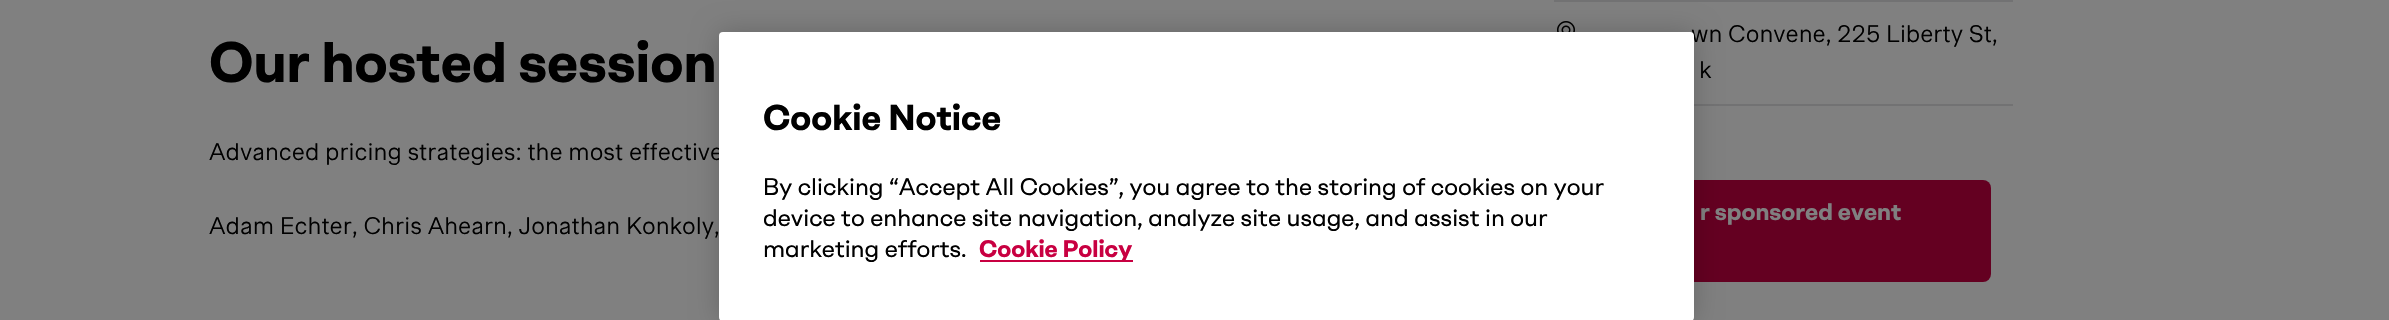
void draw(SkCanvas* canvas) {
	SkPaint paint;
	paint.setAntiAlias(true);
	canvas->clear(0xff808080);
	SkFont f1(fontMgr->matchFamilyStyle("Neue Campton", SkFontStyle::Bold()), 57);
	f1.setSubpixel(true);
	paint.setColor(0xff000000);
	canvas->drawString("Our hosted session", 209, 82, f1, paint);
	SkFont f2(fontMgr->matchFamilyStyle("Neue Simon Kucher", SkFontStyle::Normal()), 24);
	f2.setSubpixel(true);
	canvas->drawString("Advanced pricing strategies: the most effective", 209, 160, f2, paint);
	canvas->drawString("Adam Echter, Chris Ahearn, Jonathan Konkoly,", 209, 234, f2, paint);
	paint.setColor(0xff727273);
	canvas->drawRect(SkRect::MakeXYWH(1554, 0, 459, 2), paint);
	canvas->drawRect(SkRect::MakeXYWH(1694, 104, 319, 2), paint);
	canvas->drawImageRect(SkImages::DeferredFromEncodedData(SkData::MakeFromFileName("img1.png")), SkRect::MakeXYWH(1557, 21, 18, 11), SkSamplingOptions());
	paint.setColor(0xff000000);
	canvas->drawString("wn Convene, 225 Liberty St,", 1691, 42, f2, paint);
	canvas->drawString("k", 1699, 78, f2, paint);
	paint.setColor(0xff640021);
	canvas->drawRoundRect(SkRect::MakeXYWH(1554, 180, 437, 102), 8, 8, paint);
	SkFont f3(fontMgr->matchFamilyStyle("Neue Campton", SkFontStyle::Bold()), 24);
	f3.setSubpixel(true);
	paint.setColor(0xff808080);
	canvas->drawString("r sponsored event", 1700, 220, f3, paint);
	paint.setColor(0x33000000);
	paint.setMaskFilter(SkMaskFilter::MakeBlur(kNormal_SkBlurStyle, 13.5));
	canvas->drawRoundRect(SkRect::MakeXYWH(719, 32, 975, 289), 4, 4, paint);
	paint.setMaskFilter(nullptr);
	paint.setColor(0xffffffff);
	canvas->drawRoundRect(SkRect::MakeXYWH(719, 32, 975, 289), 4, 4, paint);
	SkFont f4(fontMgr->matchFamilyStyle("Neue Campton", SkFontStyle::Bold()), 36);
	f4.setSubpixel(true);
	paint.setColor(0xff000000);
	canvas->drawString("Cookie Notice", 763, 130, f4, paint);
	SkFont f5(fontMgr->matchFamilyStyle("Neue Campton", SkFontStyle::Normal()), 24);
	f5.setSubpixel(true);
	canvas->drawString("By clicking “Accept All Cookies”, you agree to the storing of cookies on your", 763, 195, f5, paint);
	canvas->drawString("device to enhance site navigation, analyze site usage, and assist in our", 763, 226, f5, paint);
	canvas->drawString("marketing efforts.", 763, 257, f5, paint);
	paint.setColor(0xffc80041);
	canvas->drawRect(SkRect::MakeXYWH(980, 260, 153, 2), paint);
	canvas->drawString("Cookie Policy", 979, 257, f3, paint);
}
